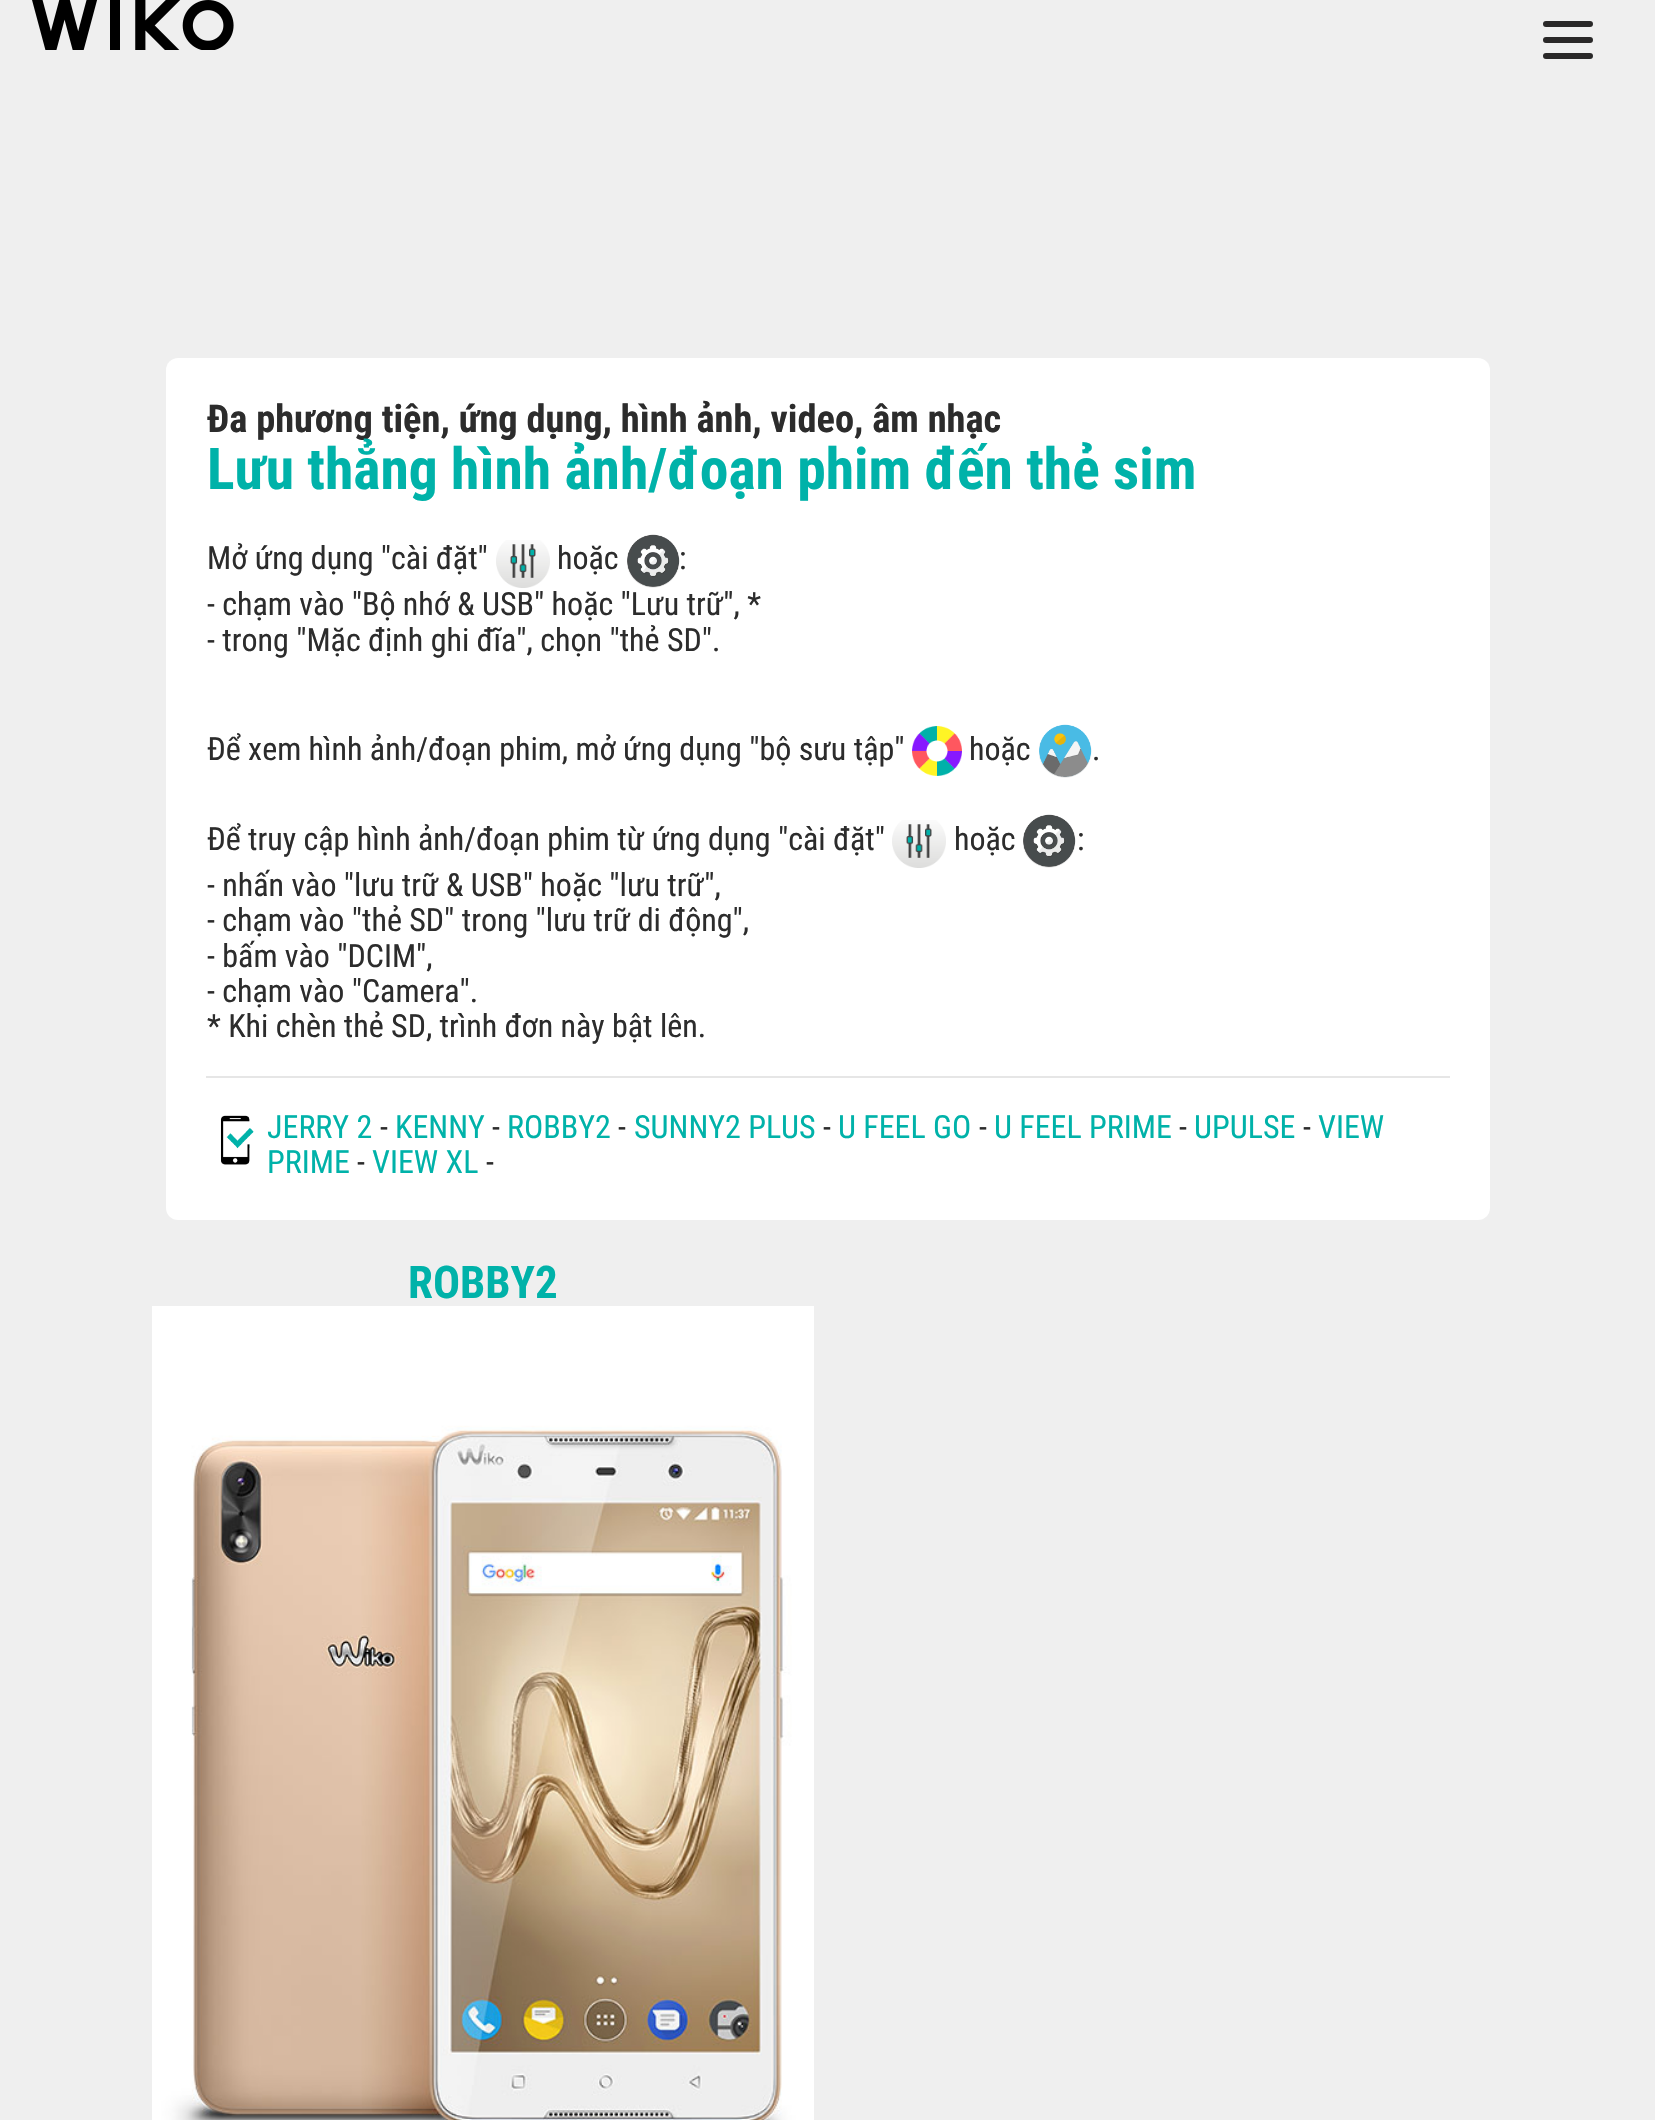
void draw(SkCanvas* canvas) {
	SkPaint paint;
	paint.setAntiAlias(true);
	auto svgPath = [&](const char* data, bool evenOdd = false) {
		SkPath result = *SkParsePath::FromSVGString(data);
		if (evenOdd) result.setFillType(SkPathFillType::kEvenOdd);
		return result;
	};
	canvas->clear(0xffefefef);
	canvas->drawImageRect(SkImages::DeferredFromEncodedData(SkData::MakeFromFileName("img1.png")), SkRect::MakeXYWH(32, 0, 202, 50), SkSamplingOptions());
	paint.setStroke(true);
	paint.setStrokeWidth(6);
	paint.setStrokeCap(SkPaint::kRound_Cap);
	paint.setColor(0xff292828);
	canvas->drawPath(svgPath("M1546 24H1590M1546 40H1590M1546 56H1590"), paint);
	paint.setStroke(false);
	paint.setColor(0xffffffff);
	canvas->drawRoundRect(SkRect::MakeXYWH(166, 358, 1324, 862), 12, 12, paint);
	SkFont f1(fontMgr->matchFamilyStyle("Roboto Condensed", SkFontStyle::Bold()), 38.4);
	f1.setSubpixel(true);
	paint.setColor(0xff2c2c2c);
	canvas->drawString("Đa phương tiện, ứng dụng, hình ảnh, video, âm nhạc", 207, 432, f1, paint);
	SkFont f2(fontMgr->matchFamilyStyle("Roboto Condensed", SkFontStyle::Bold()), 57.6);
	f2.setSubpixel(true);
	paint.setColor(0xff00b2a9);
	canvas->drawString("Lưu thẳng hình ảnh/đoạn phim đến thẻ sim", 207, 489, f2, paint);
	SkFont f3(fontMgr->matchFamilyStyle("Roboto Condensed", SkFontStyle::Normal()), 32);
	f3.setSubpixel(true);
	paint.setColor(0xff2c2c2c);
	canvas->drawString("Mở ứng dụng \"cài đặt\"", 207, 569, f3, paint);
	canvas->drawImageRect(SkImages::DeferredFromEncodedData(SkData::MakeFromFileName("img2.png")), SkRect::MakeXYWH(496, 540, 54, 48), SkSamplingOptions());
	canvas->drawString("hoặc", 557, 569, f3, paint);
	canvas->drawImageRect(SkImages::DeferredFromEncodedData(SkData::MakeFromFileName("img3.png")), SkRect::MakeXYWH(627, 534, 53, 54), SkSamplingOptions());
	canvas->drawString(":", 679, 569, f3, paint);
	canvas->drawString("- chạm vào \"Bộ nhớ & USB\" hoặc \"Lưu trữ\", *", 207, 615, f3, paint);
	canvas->drawString("- trong \"Mặc định ghi đĩa\", chọn \"thẻ SD\".", 207, 651, f3, paint);
	canvas->drawString("Để xem hình ảnh/đoạn phim, mở ứng dụng \"bộ sưu tập\"", 207, 760, f3, paint);
	canvas->drawImageRect(SkImages::DeferredFromEncodedData(SkData::MakeFromFileName("img4.png")), SkRect::MakeXYWH(912, 726, 50, 50), SkSamplingOptions());
	canvas->drawString("hoặc", 969, 760, f3, paint);
	canvas->drawImageRect(SkImages::DeferredFromEncodedData(SkData::MakeFromFileName("img5.png")), SkRect::MakeXYWH(1039, 724, 53, 54), SkSamplingOptions());
	canvas->drawString(".", 1092, 760, f3, paint);
	canvas->drawString("Để truy cập hình ảnh/đoạn phim từ ứng dụng \"cài đặt\"", 207, 850, f3, paint);
	canvas->drawImageRect(SkImages::DeferredFromEncodedData(SkData::MakeFromFileName("img6.png")), SkRect::MakeXYWH(892, 820, 54, 48), SkSamplingOptions());
	canvas->drawString("hoặc", 954, 850, f3, paint);
	canvas->drawImageRect(SkImages::DeferredFromEncodedData(SkData::MakeFromFileName("img7.png")), SkRect::MakeXYWH(1023, 814, 53, 54), SkSamplingOptions());
	canvas->drawString(":", 1077, 850, f3, paint);
	canvas->drawString("- nhấn vào \"lưu trữ & USB\" hoặc \"lưu trữ\",", 207, 896, f3, paint);
	canvas->drawString("- chạm vào \"thẻ SD\" trong \"lưu trữ di động\",", 207, 931, f3, paint);
	canvas->drawString("- bấm vào \"DCIM\",", 207, 967, f3, paint);
	canvas->drawString("- chạm vào \"Camera\".", 207, 1002, f3, paint);
	canvas->drawString("* Khi chèn thẻ SD, trình đơn này bật lên.", 207, 1037, f3, paint);
	paint.setColor(0xffe6e6e6);
	canvas->drawRect(SkRect::MakeXYWH(206, 1076, 1244, 2), paint);
	canvas->drawImageRect(SkImages::DeferredFromEncodedData(SkData::MakeFromFileName("img8.png")), SkRect::MakeXYWH(220, 1115, 34, 50), SkSamplingOptions());
	paint.setColor(0xff00b2a9);
	canvas->drawString("JERRY 2", 267, 1138, f3, paint);
	paint.setColor(0xff2c2c2c);
	canvas->drawString("-", 380, 1138, f3, paint);
	paint.setColor(0xff00b2a9);
	canvas->drawString("KENNY", 395, 1138, f3, paint);
	paint.setColor(0xff2c2c2c);
	canvas->drawString("-", 492, 1138, f3, paint);
	paint.setColor(0xff00b2a9);
	canvas->drawString("ROBBY2", 507, 1138, f3, paint);
	paint.setColor(0xff2c2c2c);
	canvas->drawString("-", 618, 1138, f3, paint);
	paint.setColor(0xff00b2a9);
	canvas->drawString("SUNNY2 PLUS", 634, 1138, f3, paint);
	paint.setColor(0xff2c2c2c);
	canvas->drawString("-", 823, 1138, f3, paint);
	paint.setColor(0xff00b2a9);
	canvas->drawString("U FEEL GO", 838, 1138, f3, paint);
	paint.setColor(0xff2c2c2c);
	canvas->drawString("-", 979, 1138, f3, paint);
	paint.setColor(0xff00b2a9);
	canvas->drawString("U FEEL PRIME", 994, 1138, f3, paint);
	paint.setColor(0xff2c2c2c);
	canvas->drawString("-", 1179, 1138, f3, paint);
	paint.setColor(0xff00b2a9);
	canvas->drawString("UPULSE", 1194, 1138, f3, paint);
	paint.setColor(0xff2c2c2c);
	canvas->drawString("-", 1303, 1138, f3, paint);
	paint.setColor(0xff00b2a9);
	canvas->drawString("VIEW", 1318, 1138, f3, paint);
	canvas->drawString("PRIME", 267, 1173, f3, paint);
	paint.setColor(0xff2c2c2c);
	canvas->drawString("-", 357, 1173, f3, paint);
	paint.setColor(0xff00b2a9);
	canvas->drawString("VIEW XL", 372, 1173, f3, paint);
	paint.setColor(0xff2c2c2c);
	canvas->drawString("-", 486, 1173, f3, paint);
	SkFont f4(fontMgr->matchFamilyStyle("Roboto Condensed", SkFontStyle::Bold()), 45);
	f4.setSubpixel(true);
	paint.setColor(0xff00b2a9);
	canvas->drawString("ROBBY2", 408, 1298, f4, paint);
	canvas->drawImageRect(SkImages::DeferredFromEncodedData(SkData::MakeFromFileName("img9.png")), SkRect::MakeXYWH(152, 1306, 662, 814), SkSamplingOptions());
}
